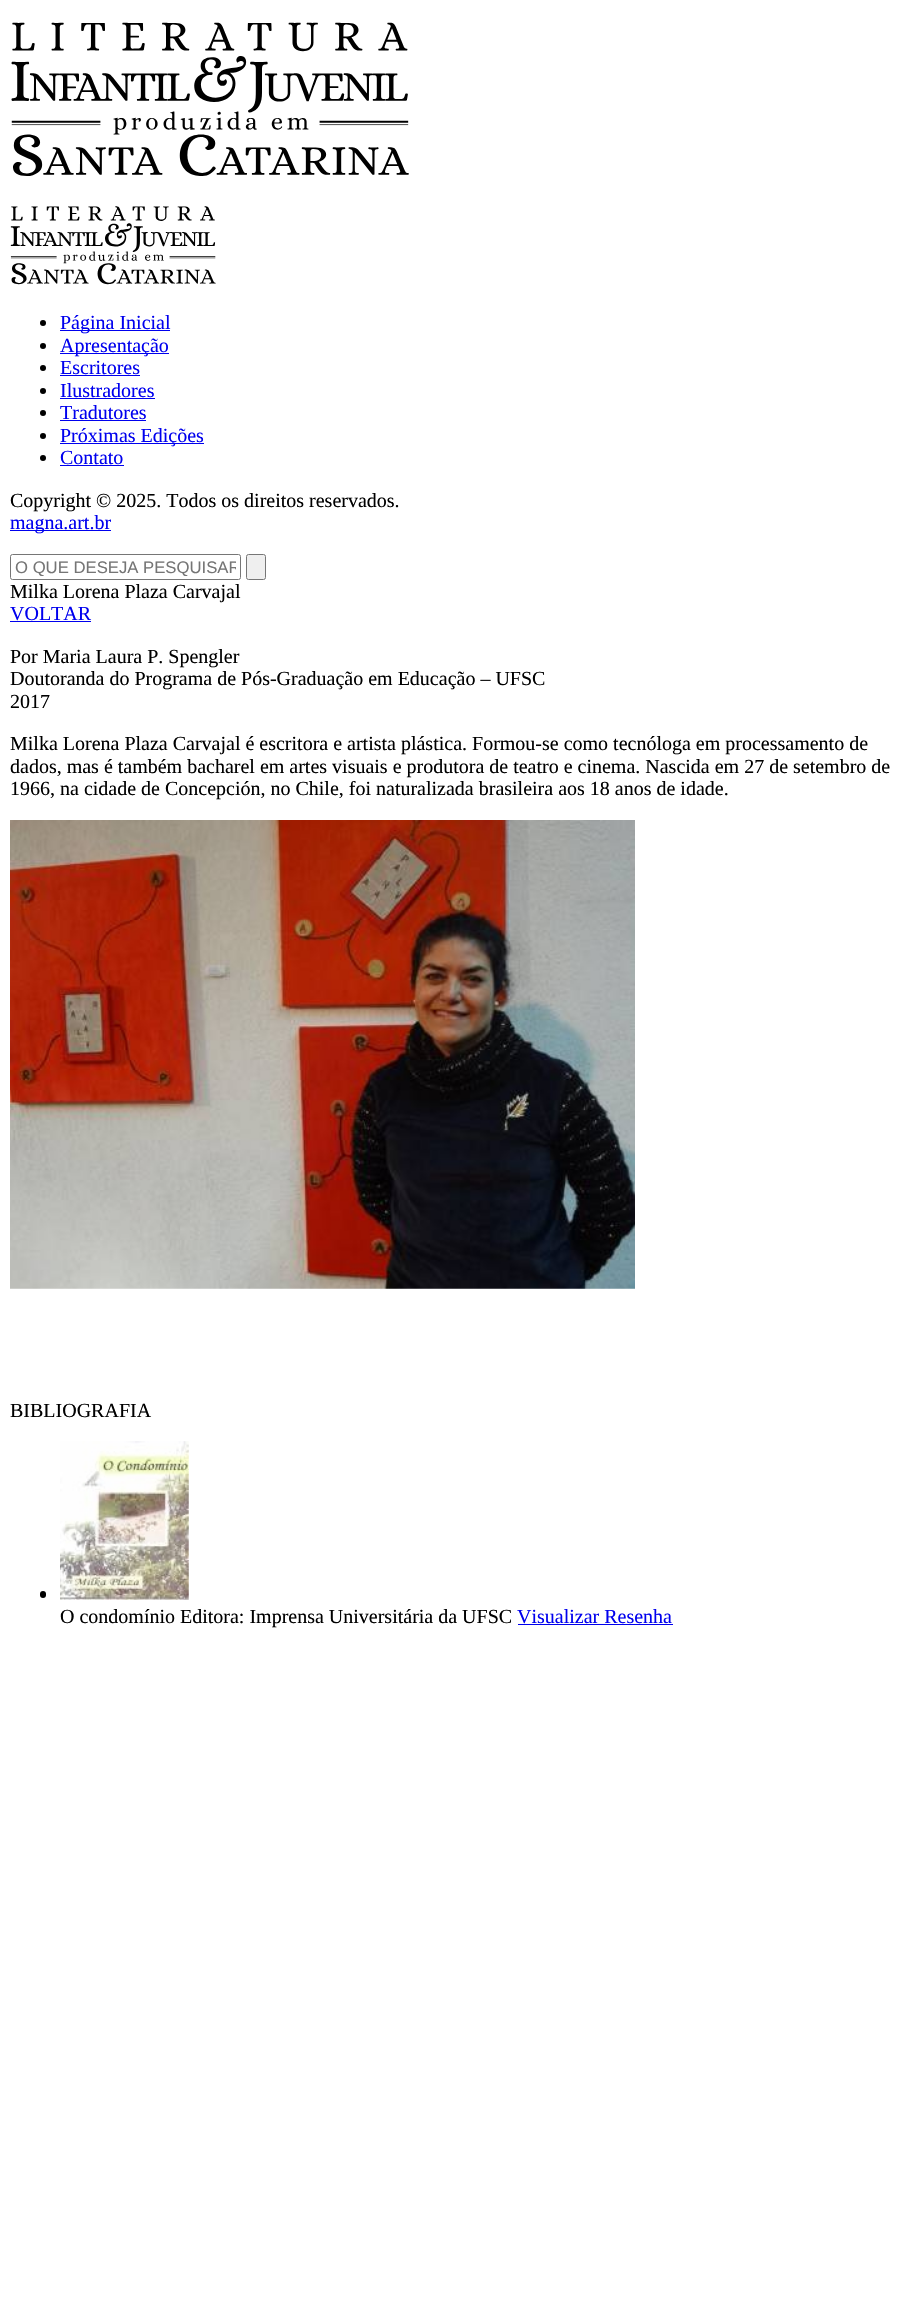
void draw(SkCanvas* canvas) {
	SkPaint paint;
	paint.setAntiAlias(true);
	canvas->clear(0xffffffff);
	canvas->drawImageRect(SkImages::DeferredFromEncodedData(SkData::MakeFromFileName("img1.png")), SkRect::MakeXYWH(11, 22, 398, 154), SkSamplingOptions());
	canvas->drawImageRect(SkImages::DeferredFromEncodedData(SkData::MakeFromFileName("img2.png")), SkRect::MakeXYWH(10, 206, 206, 79), SkSamplingOptions());
	paint.setColor(0xff000000);
	canvas->drawCircle(43, 323, 3, paint);
	paint.setColor(0xff0000ee);
	canvas->drawRect(SkRect::MakeXYWH(60, 330, 110, 1), paint);
	SkFont f1(fontMgr->matchFamilyStyle("Liberation Serif", SkFontStyle::Normal()), 20);
	f1.setSubpixel(true);
	canvas->drawString("Página Inicial", 60, 329, f1, paint);
	paint.setColor(0xff000000);
	canvas->drawCircle(43, 346, 3, paint);
	paint.setColor(0xff0000ee);
	canvas->drawRect(SkRect::MakeXYWH(60, 353, 109, 1), paint);
	canvas->drawString("Apresentação", 60, 352, f1, paint);
	paint.setColor(0xff000000);
	canvas->drawCircle(43, 368, 3, paint);
	paint.setColor(0xff0000ee);
	canvas->drawString("Escritores", 60, 374, f1, paint);
	canvas->drawRect(SkRect::MakeXYWH(60, 375, 80, 1), paint);
	paint.setColor(0xff000000);
	canvas->drawCircle(43, 391, 3, paint);
	paint.setColor(0xff0000ee);
	canvas->drawString("Ilustradores", 60, 397, f1, paint);
	canvas->drawRect(SkRect::MakeXYWH(60, 398, 95, 1), paint);
	paint.setColor(0xff000000);
	canvas->drawCircle(43, 413, 3, paint);
	paint.setColor(0xff0000ee);
	canvas->drawString("Tradutores", 60, 419, f1, paint);
	canvas->drawRect(SkRect::MakeXYWH(60, 420, 86, 1), paint);
	paint.setColor(0xff000000);
	canvas->drawCircle(43, 436, 3, paint);
	paint.setColor(0xff0000ee);
	canvas->drawRect(SkRect::MakeXYWH(60, 443, 144, 1), paint);
	canvas->drawString("Próximas Edições", 60, 442, f1, paint);
	paint.setColor(0xff000000);
	canvas->drawCircle(43, 458, 3, paint);
	paint.setColor(0xff0000ee);
	canvas->drawString("Contato", 60, 464, f1, paint);
	canvas->drawRect(SkRect::MakeXYWH(60, 465, 64, 1), paint);
	paint.setColor(0xff000000);
	canvas->drawString("Copyright © 2025. Todos os direitos reservados.", 10, 507, f1, paint);
	paint.setColor(0xff0000ee);
	canvas->drawRect(SkRect::MakeXYWH(10, 530, 101, 1), paint);
	canvas->drawString("magna.art.br", 10, 529, f1, paint);
	paint.setStroke(true);
	paint.setStrokeWidth(1);
	paint.setColor(0xff767676);
	canvas->drawRoundRect(SkRect::MakeXYWH(10.5, 554.5, 230, 25), 2, 2, paint);
	canvas->save();
	canvas->clipRect(SkRect::MakeXYWH(15, 558, 221, 18));
	SkFont f2(fontMgr->matchFamilyStyle("Liberation Sans", SkFontStyle::Normal()), 16.7);
	f2.setSubpixel(true);
	paint.setStroke(false);
	paint.setColor(0xff757575);
	canvas->drawString("O QUE DESEJA PESQUISAR", 15, 573, f2, paint);
	canvas->restore();
	paint.setColor(0xffefefef);
	canvas->drawRoundRect(SkRect::MakeXYWH(246.5, 554.5, 19, 25), 2, 2, paint);
	paint.setStroke(true);
	paint.setColor(0xff767676);
	canvas->drawRoundRect(SkRect::MakeXYWH(246.5, 554.5, 19, 25), 2, 2, paint);
	paint.setStroke(false);
	paint.setColor(0xff000000);
	canvas->drawString("Milka Lorena Plaza Carvajal", 10, 598, f1, paint);
	paint.setColor(0xff0000ee);
	canvas->drawString("VOLTAR", 10, 620, f1, paint);
	canvas->drawRect(SkRect::MakeXYWH(10, 621, 81, 1), paint);
	paint.setColor(0xff000000);
	canvas->drawString("Por Maria Laura P. Spengler", 10, 663, f1, paint);
	canvas->drawString("Doutoranda do Programa de Pós-Graduação em Educação – UFSC", 10, 685, f1, paint);
	canvas->drawString("2017", 10, 708, f1, paint);
	canvas->drawString("Milka Lorena Plaza Carvajal é escritora e artista plástica. Formou-se como tecnóloga em processamento de", 10, 750, f1, paint);
	canvas->drawString("dados, mas é também bacharel em artes visuais e produtora de teatro e cinema. Nascida em 27 de setembro de", 10, 773, f1, paint);
	canvas->drawString("1966, na cidade de Concepción, no Chile, foi naturalizada brasileira aos 18 anos de idade.", 10, 795, f1, paint);
	canvas->drawImageRect(SkImages::DeferredFromEncodedData(SkData::MakeFromFileName("img3.png")), SkRect::MakeXYWH(10, 820, 625, 469), SkSamplingOptions());
	canvas->drawString("BIBLIOGRAFIA", 10, 1417, f1, paint);
	canvas->drawRoundRect(SkRect::MakeXYWH(40, 1591, 6, 7), 3, 3, paint);
	canvas->drawImageRect(SkImages::DeferredFromEncodedData(SkData::MakeFromFileName("img4.png")), SkRect::MakeXYWH(60, 1441, 129, 159), SkSamplingOptions());
	canvas->drawString("O condomínio Editora: Imprensa Universitária da UFSC", 60, 1623, f1, paint);
	paint.setColor(0xff0000ee);
	canvas->drawString("Visualizar Resenha", 517, 1623, f1, paint);
	canvas->drawRect(SkRect::MakeXYWH(518, 1624, 155, 1), paint);
}
